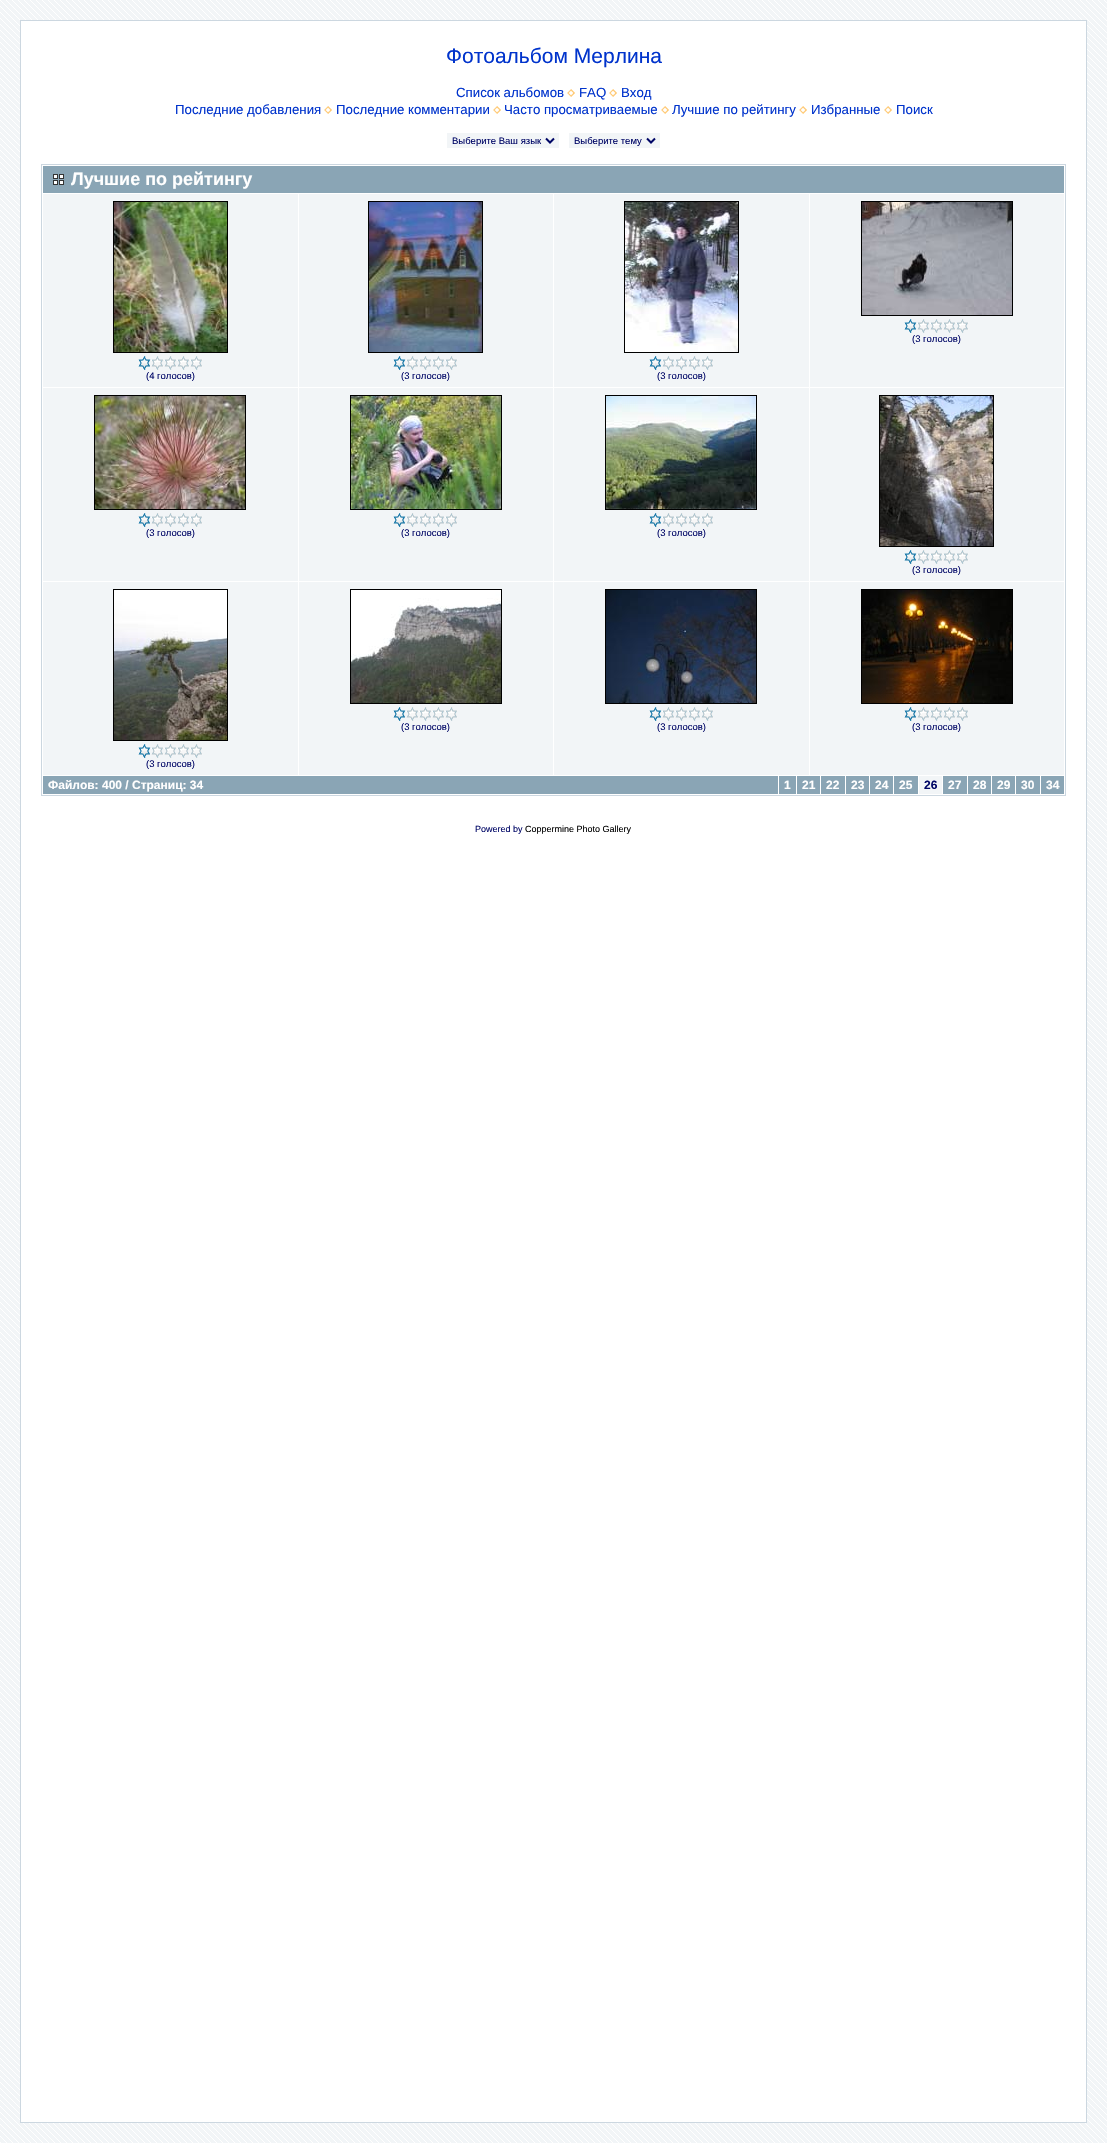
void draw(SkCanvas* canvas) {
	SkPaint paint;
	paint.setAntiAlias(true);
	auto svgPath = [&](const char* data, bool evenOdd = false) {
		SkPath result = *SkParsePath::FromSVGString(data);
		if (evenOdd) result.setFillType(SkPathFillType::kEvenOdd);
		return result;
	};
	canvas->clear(0xfff2f5f7);
	canvas->drawImageRect(SkImages::DeferredFromEncodedData(SkData::MakeFromFileName("img1.png")), SkRect::MakeXYWH(0, 0, 1107, 2143), SkSamplingOptions());
	paint.setColor(0xffffffff);
	canvas->drawRect(SkRect::MakeXYWH(20.5, 20.5, 1066, 2102), paint);
	paint.setStroke(true);
	paint.setStrokeWidth(1);
	paint.setColor(0xffccd7e0);
	canvas->drawRect(SkRect::MakeXYWH(20.5, 20.5, 1066, 2102), paint);
	SkFont f1(fontMgr->matchFamilyStyle("Liberation Sans", SkFontStyle::Normal()), 21);
	f1.setSubpixel(true);
	paint.setStroke(false);
	paint.setColor(0xff0033cc);
	canvas->drawString("Фотоальбом Мерлина", 446, 63, f1, paint);
	SkFont f2(fontMgr->matchFamilyStyle("Liberation Sans", SkFontStyle::Normal()), 13.25);
	f2.setSubpixel(true);
	canvas->drawString("Список альбомов", 456, 97, f2, paint);
	canvas->drawImageRect(SkImages::DeferredFromEncodedData(SkData::MakeFromFileName("img2.png")), SkRect::MakeXYWH(567, 89, 8, 8), SkSamplingOptions());
	canvas->drawString("FAQ", 579, 97, f2, paint);
	canvas->drawImageRect(SkImages::DeferredFromEncodedData(SkData::MakeFromFileName("img2.png")), SkRect::MakeXYWH(609, 89, 8, 8), SkSamplingOptions());
	canvas->drawString("Вход", 621, 97, f2, paint);
	canvas->drawString("Последние добавления", 175, 114, f2, paint);
	canvas->drawImageRect(SkImages::DeferredFromEncodedData(SkData::MakeFromFileName("img2.png")), SkRect::MakeXYWH(324, 106, 8, 8), SkSamplingOptions());
	canvas->drawString("Последние комментарии", 336, 114, f2, paint);
	canvas->drawImageRect(SkImages::DeferredFromEncodedData(SkData::MakeFromFileName("img2.png")), SkRect::MakeXYWH(493, 106, 8, 8), SkSamplingOptions());
	canvas->drawString("Часто просматриваемые", 504, 114, f2, paint);
	canvas->drawImageRect(SkImages::DeferredFromEncodedData(SkData::MakeFromFileName("img2.png")), SkRect::MakeXYWH(661, 106, 8, 8), SkSamplingOptions());
	canvas->drawString("Лучшие по рейтингу", 672, 114, f2, paint);
	canvas->drawImageRect(SkImages::DeferredFromEncodedData(SkData::MakeFromFileName("img2.png")), SkRect::MakeXYWH(799, 106, 8, 8), SkSamplingOptions());
	canvas->drawString("Избранные", 811, 114, f2, paint);
	canvas->drawImageRect(SkImages::DeferredFromEncodedData(SkData::MakeFromFileName("img2.png")), SkRect::MakeXYWH(884, 106, 8, 8), SkSamplingOptions());
	canvas->drawString("Поиск", 896, 114, f2, paint);
	paint.setColor(0xfff2f5f7);
	canvas->drawRect(SkRect::MakeXYWH(447, 133, 112, 15), paint);
	paint.setStroke(true);
	paint.setStrokeWidth(2);
	paint.setColor(0xff000666);
	canvas->drawPath(svgPath("M546 138.5L550 142.5L554 138.5"), paint);
	SkFont f3(fontMgr->matchFamilyStyle("Liberation Sans", SkFontStyle::Normal()), 9.5);
	f3.setSubpixel(true);
	paint.setStroke(false);
	canvas->drawString("Выберите Ваш язык", 452, 144, f3, paint);
	paint.setColor(0xfff2f5f7);
	canvas->drawRect(SkRect::MakeXYWH(569, 133, 91, 15), paint);
	paint.setStroke(true);
	paint.setColor(0xff000666);
	canvas->drawPath(svgPath("M647 138.5L651 142.5L655 138.5"), paint);
	paint.setStroke(false);
	canvas->drawString("Выберите тему", 574, 144, f3, paint);
	paint.setStroke(true);
	paint.setStrokeWidth(1);
	paint.setColor(0xffccd7e0);
	canvas->drawRect(SkRect::MakeXYWH(41.5, 164.5, 1024, 631), paint);
	paint.setStroke(false);
	paint.setColor(0xff8aa5b5);
	canvas->drawRect(SkRect::MakeXYWH(43, 166, 1021, 27), paint);
	canvas->drawImageRect(SkImages::DeferredFromEncodedData(SkData::MakeFromFileName("img3.png")), SkRect::MakeXYWH(53, 174, 11, 11), SkSamplingOptions());
	SkFont f4(fontMgr->matchFamilyStyle("Liberation Sans", SkFontStyle::Bold()), 18);
	f4.setSubpixel(true);
	paint.setColor(0xffffffff);
	canvas->drawString("Лучшие по рейтингу", 71, 185, f4, paint);
	paint.setColor(0xfff2f5f7);
	canvas->drawRect(SkRect::MakeXYWH(810, 194, 254, 193), paint);
	paint.setStroke(true);
	paint.setColor(0xff000000);
	canvas->drawRect(SkRect::MakeXYWH(861.5, 201.5, 151, 114), paint);
	canvas->drawImageRect(SkImages::DeferredFromEncodedData(SkData::MakeFromFileName("img4.png")), SkRect::MakeXYWH(862, 202, 150, 113), SkSamplingOptions());
	canvas->drawImageRect(SkImages::DeferredFromEncodedData(SkData::MakeFromFileName("img5.png")), SkRect::MakeXYWH(904, 319, 65, 14), SkSamplingOptions());
	paint.setStroke(false);
	paint.setColor(0xff000666);
	canvas->drawString("(3 голосов)", 912, 342, f3, paint);
	paint.setColor(0xfff2f5f7);
	canvas->drawRect(SkRect::MakeXYWH(43, 194, 255, 193), paint);
	paint.setStroke(true);
	paint.setColor(0xff000000);
	canvas->drawRect(SkRect::MakeXYWH(113.5, 201.5, 114, 151), paint);
	canvas->drawImageRect(SkImages::DeferredFromEncodedData(SkData::MakeFromFileName("img6.png")), SkRect::MakeXYWH(114, 202, 113, 150), SkSamplingOptions());
	canvas->drawImageRect(SkImages::DeferredFromEncodedData(SkData::MakeFromFileName("img5.png")), SkRect::MakeXYWH(138, 356, 65, 14), SkSamplingOptions());
	paint.setStroke(false);
	paint.setColor(0xff000666);
	canvas->drawString("(4 голосов)", 146, 379, f3, paint);
	paint.setColor(0xfff2f5f7);
	canvas->drawRect(SkRect::MakeXYWH(299, 194, 254, 193), paint);
	paint.setStroke(true);
	paint.setColor(0xff000000);
	canvas->drawRect(SkRect::MakeXYWH(368.5, 201.5, 114, 151), paint);
	canvas->drawImageRect(SkImages::DeferredFromEncodedData(SkData::MakeFromFileName("img7.png")), SkRect::MakeXYWH(369, 202, 113, 150), SkSamplingOptions());
	canvas->drawImageRect(SkImages::DeferredFromEncodedData(SkData::MakeFromFileName("img5.png")), SkRect::MakeXYWH(393, 356, 65, 14), SkSamplingOptions());
	paint.setStroke(false);
	paint.setColor(0xff000666);
	canvas->drawString("(3 голосов)", 401, 379, f3, paint);
	paint.setColor(0xfff2f5f7);
	canvas->drawRect(SkRect::MakeXYWH(554, 194, 255, 193), paint);
	paint.setStroke(true);
	paint.setColor(0xff000000);
	canvas->drawRect(SkRect::MakeXYWH(624.5, 201.5, 114, 151), paint);
	canvas->drawImageRect(SkImages::DeferredFromEncodedData(SkData::MakeFromFileName("img8.png")), SkRect::MakeXYWH(625, 202, 113, 150), SkSamplingOptions());
	canvas->drawImageRect(SkImages::DeferredFromEncodedData(SkData::MakeFromFileName("img5.png")), SkRect::MakeXYWH(649, 356, 65, 14), SkSamplingOptions());
	paint.setStroke(false);
	paint.setColor(0xff000666);
	canvas->drawString("(3 голосов)", 657, 379, f3, paint);
	paint.setColor(0xfff2f5f7);
	canvas->drawRect(SkRect::MakeXYWH(43, 388, 255, 193), paint);
	paint.setStroke(true);
	paint.setColor(0xff000000);
	canvas->drawRect(SkRect::MakeXYWH(94.5, 395.5, 151, 114), paint);
	canvas->drawImageRect(SkImages::DeferredFromEncodedData(SkData::MakeFromFileName("img9.png")), SkRect::MakeXYWH(95, 396, 150, 113), SkSamplingOptions());
	canvas->drawImageRect(SkImages::DeferredFromEncodedData(SkData::MakeFromFileName("img5.png")), SkRect::MakeXYWH(138, 513, 65, 14), SkSamplingOptions());
	paint.setStroke(false);
	paint.setColor(0xff000666);
	canvas->drawString("(3 голосов)", 146, 536, f3, paint);
	paint.setColor(0xfff2f5f7);
	canvas->drawRect(SkRect::MakeXYWH(299, 388, 254, 193), paint);
	paint.setStroke(true);
	paint.setColor(0xff000000);
	canvas->drawRect(SkRect::MakeXYWH(350.5, 395.5, 151, 114), paint);
	canvas->drawImageRect(SkImages::DeferredFromEncodedData(SkData::MakeFromFileName("img10.png")), SkRect::MakeXYWH(351, 396, 150, 113), SkSamplingOptions());
	canvas->drawImageRect(SkImages::DeferredFromEncodedData(SkData::MakeFromFileName("img5.png")), SkRect::MakeXYWH(393, 513, 65, 14), SkSamplingOptions());
	paint.setStroke(false);
	paint.setColor(0xff000666);
	canvas->drawString("(3 голосов)", 401, 536, f3, paint);
	paint.setColor(0xfff2f5f7);
	canvas->drawRect(SkRect::MakeXYWH(554, 388, 255, 193), paint);
	paint.setStroke(true);
	paint.setColor(0xff000000);
	canvas->drawRect(SkRect::MakeXYWH(605.5, 395.5, 151, 114), paint);
	canvas->drawImageRect(SkImages::DeferredFromEncodedData(SkData::MakeFromFileName("img11.png")), SkRect::MakeXYWH(606, 396, 150, 113), SkSamplingOptions());
	canvas->drawImageRect(SkImages::DeferredFromEncodedData(SkData::MakeFromFileName("img5.png")), SkRect::MakeXYWH(649, 513, 65, 14), SkSamplingOptions());
	paint.setStroke(false);
	paint.setColor(0xff000666);
	canvas->drawString("(3 голосов)", 657, 536, f3, paint);
	paint.setColor(0xfff2f5f7);
	canvas->drawRect(SkRect::MakeXYWH(810, 388, 254, 193), paint);
	paint.setStroke(true);
	paint.setColor(0xff000000);
	canvas->drawRect(SkRect::MakeXYWH(879.5, 395.5, 114, 151), paint);
	canvas->drawImageRect(SkImages::DeferredFromEncodedData(SkData::MakeFromFileName("img12.png")), SkRect::MakeXYWH(880, 396, 113, 150), SkSamplingOptions());
	canvas->drawImageRect(SkImages::DeferredFromEncodedData(SkData::MakeFromFileName("img5.png")), SkRect::MakeXYWH(904, 550, 65, 14), SkSamplingOptions());
	paint.setStroke(false);
	paint.setColor(0xff000666);
	canvas->drawString("(3 голосов)", 912, 573, f3, paint);
	paint.setColor(0xfff2f5f7);
	canvas->drawRect(SkRect::MakeXYWH(299, 582, 254, 193), paint);
	paint.setStroke(true);
	paint.setColor(0xff000000);
	canvas->drawRect(SkRect::MakeXYWH(350.5, 589.5, 151, 114), paint);
	canvas->drawImageRect(SkImages::DeferredFromEncodedData(SkData::MakeFromFileName("img13.png")), SkRect::MakeXYWH(351, 590, 150, 113), SkSamplingOptions());
	canvas->drawImageRect(SkImages::DeferredFromEncodedData(SkData::MakeFromFileName("img5.png")), SkRect::MakeXYWH(393, 707, 65, 14), SkSamplingOptions());
	paint.setStroke(false);
	paint.setColor(0xff000666);
	canvas->drawString("(3 голосов)", 401, 730, f3, paint);
	paint.setColor(0xfff2f5f7);
	canvas->drawRect(SkRect::MakeXYWH(554, 582, 255, 193), paint);
	paint.setStroke(true);
	paint.setColor(0xff000000);
	canvas->drawRect(SkRect::MakeXYWH(605.5, 589.5, 151, 114), paint);
	canvas->drawImageRect(SkImages::DeferredFromEncodedData(SkData::MakeFromFileName("img14.png")), SkRect::MakeXYWH(606, 590, 150, 113), SkSamplingOptions());
	canvas->drawImageRect(SkImages::DeferredFromEncodedData(SkData::MakeFromFileName("img5.png")), SkRect::MakeXYWH(649, 707, 65, 14), SkSamplingOptions());
	paint.setStroke(false);
	paint.setColor(0xff000666);
	canvas->drawString("(3 голосов)", 657, 730, f3, paint);
	paint.setColor(0xfff2f5f7);
	canvas->drawRect(SkRect::MakeXYWH(810, 582, 254, 193), paint);
	paint.setStroke(true);
	paint.setColor(0xff000000);
	canvas->drawRect(SkRect::MakeXYWH(861.5, 589.5, 151, 114), paint);
	canvas->drawImageRect(SkImages::DeferredFromEncodedData(SkData::MakeFromFileName("img15.png")), SkRect::MakeXYWH(862, 590, 150, 113), SkSamplingOptions());
	canvas->drawImageRect(SkImages::DeferredFromEncodedData(SkData::MakeFromFileName("img5.png")), SkRect::MakeXYWH(904, 707, 65, 14), SkSamplingOptions());
	paint.setStroke(false);
	paint.setColor(0xff000666);
	canvas->drawString("(3 голосов)", 912, 730, f3, paint);
	paint.setColor(0xfff2f5f7);
	canvas->drawRect(SkRect::MakeXYWH(43, 582, 255, 193), paint);
	paint.setStroke(true);
	paint.setColor(0xff000000);
	canvas->drawRect(SkRect::MakeXYWH(113.5, 589.5, 114, 151), paint);
	canvas->drawImageRect(SkImages::DeferredFromEncodedData(SkData::MakeFromFileName("img16.png")), SkRect::MakeXYWH(114, 590, 113, 150), SkSamplingOptions());
	canvas->drawImageRect(SkImages::DeferredFromEncodedData(SkData::MakeFromFileName("img5.png")), SkRect::MakeXYWH(138, 744, 65, 14), SkSamplingOptions());
	paint.setStroke(false);
	paint.setColor(0xff000666);
	canvas->drawString("(3 голосов)", 146, 767, f3, paint);
	paint.setColor(0xff8aa5b5);
	canvas->drawRect(SkRect::MakeXYWH(43, 776, 735, 18), paint);
	SkFont f5(fontMgr->matchFamilyStyle("Liberation Sans", SkFontStyle::Bold()), 12);
	f5.setSubpixel(true);
	paint.setColor(0xffffffff);
	canvas->drawString("Файлов: 400 / Страниц: 34", 48, 789, f5, paint);
	paint.setColor(0xff8aa5b5);
	canvas->drawRect(SkRect::MakeXYWH(779, 776, 17, 18), paint);
	paint.setColor(0xffffffff);
	canvas->drawString("1", 784, 789, f5, paint);
	paint.setColor(0xff8aa5b5);
	canvas->drawRect(SkRect::MakeXYWH(797, 776, 23, 18), paint);
	paint.setColor(0xffffffff);
	canvas->drawString("21", 802, 789, f5, paint);
	paint.setColor(0xff8aa5b5);
	canvas->drawRect(SkRect::MakeXYWH(821, 776, 24, 18), paint);
	paint.setColor(0xffffffff);
	canvas->drawString("22", 826, 789, f5, paint);
	paint.setColor(0xff8aa5b5);
	canvas->drawRect(SkRect::MakeXYWH(846, 776, 23, 18), paint);
	paint.setColor(0xffffffff);
	canvas->drawString("23", 851, 789, f5, paint);
	paint.setColor(0xff8aa5b5);
	canvas->drawRect(SkRect::MakeXYWH(870, 776, 23, 18), paint);
	paint.setColor(0xffffffff);
	canvas->drawString("24", 875, 789, f5, paint);
	paint.setColor(0xff8aa5b5);
	canvas->drawRect(SkRect::MakeXYWH(894, 776, 24, 18), paint);
	paint.setColor(0xffffffff);
	canvas->drawString("25", 899, 789, f5, paint);
	paint.setColor(0xfff2f5f7);
	canvas->drawRect(SkRect::MakeXYWH(919, 776, 23, 18), paint);
	paint.setColor(0xff000666);
	canvas->drawString("26", 924, 789, f5, paint);
	paint.setColor(0xff8aa5b5);
	canvas->drawRect(SkRect::MakeXYWH(943, 776, 24, 18), paint);
	paint.setColor(0xffffffff);
	canvas->drawString("27", 948, 789, f5, paint);
	paint.setColor(0xff8aa5b5);
	canvas->drawRect(SkRect::MakeXYWH(968, 776, 23, 18), paint);
	paint.setColor(0xffffffff);
	canvas->drawString("28", 973, 789, f5, paint);
	paint.setColor(0xff8aa5b5);
	canvas->drawRect(SkRect::MakeXYWH(992, 776, 23, 18), paint);
	paint.setColor(0xffffffff);
	canvas->drawString("29", 997, 789, f5, paint);
	paint.setColor(0xff8aa5b5);
	canvas->drawRect(SkRect::MakeXYWH(1016, 776, 24, 18), paint);
	paint.setColor(0xffffffff);
	canvas->drawString("30", 1021, 789, f5, paint);
	paint.setColor(0xff8aa5b5);
	canvas->drawRect(SkRect::MakeXYWH(1041, 776, 23, 18), paint);
	paint.setColor(0xffffffff);
	canvas->drawString("34", 1046, 789, f5, paint);
	SkFont f6(fontMgr->matchFamilyStyle("Liberation Sans", SkFontStyle::Normal()), 9);
	f6.setSubpixel(true);
	paint.setColor(0xff000666);
	canvas->drawString("Powered by", 475, 832, f6, paint);
	paint.setColor(0xff000000);
	canvas->drawString("Coppermine Photo Gallery", 525, 832, f6, paint);
}
